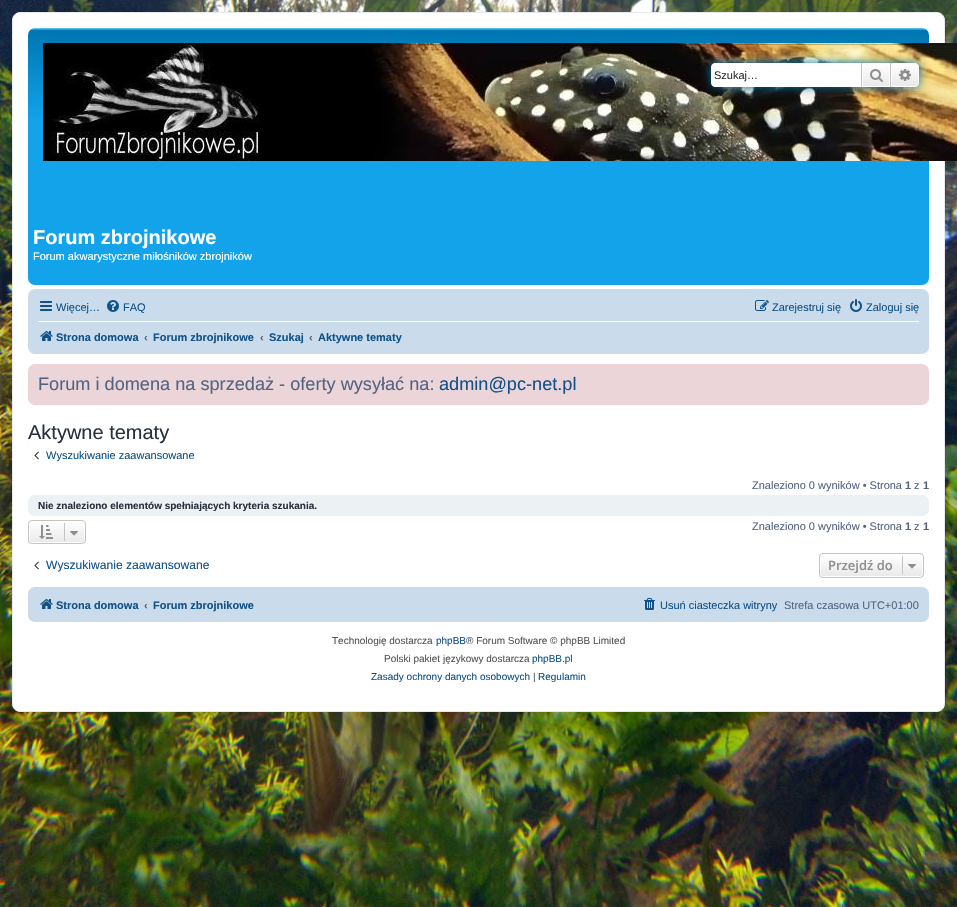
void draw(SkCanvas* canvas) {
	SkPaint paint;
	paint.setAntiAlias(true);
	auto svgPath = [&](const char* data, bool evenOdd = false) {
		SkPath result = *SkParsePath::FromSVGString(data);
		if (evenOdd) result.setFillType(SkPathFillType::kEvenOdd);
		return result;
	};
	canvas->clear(0xffffffff);
	canvas->drawImageRect(SkImages::DeferredFromEncodedData(SkData::MakeFromFileName("img1.png")), SkRect::MakeXYWH(0, 906, 957, 1), SkSamplingOptions());
	canvas->drawImageRect(SkImages::DeferredFromEncodedData(SkData::MakeFromFileName("img2.png")), SkRect::MakeXYWH(0, 0, 957, 907), SkSamplingOptions());
	paint.setColor(0xffffffff);
	canvas->drawRoundRect(SkRect::MakeXYWH(12.5, 12.5, 932, 699), 7.5, 7.5, paint);
	paint.setStroke(true);
	paint.setStrokeWidth(1);
	paint.setColor(0xffe6e9ed);
	canvas->drawRoundRect(SkRect::MakeXYWH(12.5, 12.5, 932, 699), 7.5, 7.5, paint);
	paint.setStroke(false);
	{
		const SkColor colors[] = {0xff6aceff, 0xff0076b1, 0xff12a3eb, 0xff12a3eb};
		const float stops[] = {0, 0.01, 0.36, 1};
		const SkPoint ends[] = {{479, 28}, {479, 285}};
		paint.setShader(SkGradientShader::MakeLinear(ends, colors, stops, 4, SkTileMode::kClamp));
		paint.setAlpha(255);
	}
	canvas->drawRoundRect(SkRect::MakeXYWH(28, 28, 901, 257), 7, 7, paint);
	canvas->drawImageRect(SkImages::DeferredFromEncodedData(SkData::MakeFromFileName("img5.png")), SkRect::MakeXYWH(43, 43, 914, 118), SkSamplingOptions());
	paint.setShader(nullptr);
	paint.setColor(0xff0075b0);
	paint.setMaskFilter(SkMaskFilter::MakeBlur(kNormal_SkBlurStyle, 5));
	canvas->drawRoundRect(SkRect::MakeXYWH(711, 63, 208, 24), 4, 4, paint);
	paint.setMaskFilter(nullptr);
	paint.setColor(0xffffffff);
	canvas->drawPath(svgPath("M715 63H861V87H715C713 87 711 85 711 83V67C711 65 713 63 715 63Z"), paint);
	SkFont f1(fontMgr->matchFamilyStyle("Liberation Sans", SkFontStyle::Normal()), 11);
	f1.setSubpixel(true);
	paint.setColor(0xff333333);
	canvas->drawString("Szukaj…", 714, 79, f1, paint);
	{
		const SkColor colors[] = {0xffffffff, 0xffe9e9e9};
		const float stops[] = {0, 1};
		const SkPoint ends[] = {{876, 63}, {876, 87}};
		paint.setShader(SkGradientShader::MakeLinear(ends, colors, stops, 2, SkTileMode::kClamp));
		paint.setAlpha(255);
	}
	canvas->drawRect(SkRect::MakeXYWH(863, 64, 26, 22), paint);
	paint.setStroke(true);
	paint.setShader(nullptr);
	paint.setColor(0xffffffff);
	canvas->drawRect(SkRect::MakeXYWH(862.5, 63.5, 27, 23), paint);
	paint.setStroke(false);
	paint.setColor(0xffc7c3bf);
	canvas->drawRect(SkRect::MakeXYWH(890, 63, 1, 24), paint);
	canvas->drawRect(SkRect::MakeXYWH(861, 63, 1, 24), paint);
	canvas->drawImageRect(SkImages::DeferredFromEncodedData(SkData::MakeFromFileName("img3.png")), SkRect::MakeXYWH(870, 69, 13, 13), SkSamplingOptions());
	{
		const SkColor colors[] = {0xffffffff, 0xffe9e9e9};
		const float stops[] = {0, 1};
		const SkPoint ends[] = {{905, 63}, {905, 87}};
		paint.setShader(SkGradientShader::MakeLinear(ends, colors, stops, 2, SkTileMode::kClamp));
		paint.setAlpha(255);
	}
	canvas->drawPath(svgPath("M891.5 63.5H915C917 63.5 918.5 65 918.5 67V83C918.5 85 917 86.5 915 86.5H891.5Z"), paint);
	paint.setStroke(true);
	paint.setShader(nullptr);
	paint.setColor(0xffffffff);
	canvas->drawPath(svgPath("M891.5 63.5H915C917 63.5 918.5 65 918.5 67V83C918.5 85 917 86.5 915 86.5H891.5Z"), paint);
	canvas->drawImageRect(SkImages::DeferredFromEncodedData(SkData::MakeFromFileName("img4.png")), SkRect::MakeXYWH(899, 69, 12, 12), SkSamplingOptions());
	SkFont f2(fontMgr->matchFamilyStyle("Liberation Sans", SkFontStyle::Bold()), 20);
	f2.setSubpixel(true);
	paint.setStroke(false);
	canvas->drawString("Forum zbrojnikowe", 33, 244, f2, paint);
	canvas->drawString("Forum akwarystyczne miłośników zbrojników", 33, 260, f1, paint);
	paint.setColor(0xffcadceb);
	canvas->drawRoundRect(SkRect::MakeXYWH(28, 289, 901, 65), 7, 7, paint);
	canvas->drawImageRect(SkImages::DeferredFromEncodedData(SkData::MakeFromFileName("img6.png")), SkRect::MakeXYWH(40, 301, 12, 10), SkSamplingOptions());
	paint.setColor(0xff105289);
	canvas->drawString("Więcej…", 56, 311, f1, paint);
	canvas->drawImageRect(SkImages::DeferredFromEncodedData(SkData::MakeFromFileName("img7.png")), SkRect::MakeXYWH(107, 300, 12, 12), SkSamplingOptions());
	canvas->drawString("FAQ", 123, 311, f1, paint);
	canvas->drawImageRect(SkImages::DeferredFromEncodedData(SkData::MakeFromFileName("img8.png")), SkRect::MakeXYWH(755, 300, 14, 11), SkSamplingOptions());
	canvas->drawString("Zarejestruj się", 772, 311, f1, paint);
	canvas->drawImageRect(SkImages::DeferredFromEncodedData(SkData::MakeFromFileName("img9.png")), SkRect::MakeXYWH(850, 299, 12, 13), SkSamplingOptions());
	canvas->drawString("Zaloguj się", 866, 311, f1, paint);
	paint.setColor(0xffffffff);
	canvas->drawRect(SkRect::MakeXYWH(38, 321, 881, 1), paint);
	canvas->drawImageRect(SkImages::DeferredFromEncodedData(SkData::MakeFromFileName("img10.png")), SkRect::MakeXYWH(40, 331, 13, 10), SkSamplingOptions());
	SkFont f3(fontMgr->matchFamilyStyle("Liberation Sans", SkFontStyle::Bold()), 11);
	f3.setSubpixel(true);
	paint.setColor(0xff105289);
	canvas->drawString("Strona domowa", 56, 341, f3, paint);
	paint.setColor(0xff536482);
	canvas->drawString("‹", 144, 341, f3, paint);
	paint.setColor(0xff105289);
	canvas->drawString("Forum zbrojnikowe", 153, 341, f3, paint);
	paint.setColor(0xff536482);
	canvas->drawString("‹", 260, 341, f3, paint);
	paint.setColor(0xff105289);
	canvas->drawString("Szukaj", 269, 341, f3, paint);
	paint.setColor(0xff536482);
	canvas->drawString("‹", 309, 341, f3, paint);
	paint.setColor(0xff105289);
	canvas->drawString("Aktywne tematy", 318, 341, f3, paint);
	paint.setColor(0xffecd5d8);
	canvas->drawRoundRect(SkRect::MakeXYWH(28, 364, 901, 41), 7, 7, paint);
	SkFont f4(fontMgr->matchFamilyStyle("Liberation Sans", SkFontStyle::Normal()), 18.15);
	f4.setSubpixel(true);
	paint.setColor(0xff536482);
	canvas->drawString("Forum i domena na sprzedaż - oferty wysyłać na:", 38, 390, f4, paint);
	paint.setColor(0xff105289);
	canvas->drawString("admin@pc-net.pl", 439, 390, f4, paint);
	SkFont f5(fontMgr->matchFamilyStyle("Liberation Sans", SkFontStyle::Normal()), 20);
	f5.setSubpixel(true);
	paint.setColor(0xff28313f);
	canvas->drawString("Aktywne tematy", 28, 439, f5, paint);
	canvas->drawImageRect(SkImages::DeferredFromEncodedData(SkData::MakeFromFileName("img11.png")), SkRect::MakeXYWH(34, 451, 5, 9), SkSamplingOptions());
	paint.setColor(0xff105289);
	canvas->drawString("Wyszukiwanie zaawansowane", 46, 459, f1, paint);
	paint.setColor(0xff536482);
	canvas->drawString("Znaleziono 0 wyników • Strona", 752, 489, f1, paint);
	canvas->drawString("1", 905, 489, f3, paint);
	canvas->drawString("z", 914, 489, f1, paint);
	canvas->drawString("1", 923, 489, f3, paint);
	paint.setColor(0xffecf1f3);
	canvas->drawRoundRect(SkRect::MakeXYWH(28, 495, 901, 21), 7, 7, paint);
	SkFont f6(fontMgr->matchFamilyStyle("Liberation Sans", SkFontStyle::Bold()), 10);
	f6.setSubpixel(true);
	paint.setColor(0xff28313f);
	canvas->drawString("Nie znaleziono elementów spełniających kryteria szukania.", 38, 509, f6, paint);
	canvas->save();
	canvas->clipPath(svgPath("M32 520H82C84 520 86 522 86 524V540C86 542 84 544 82 544H32C30 544 28 542 28 540V524C28 522 30 520 32 520Z"), true);
	{
		const SkColor colors[] = {0xffffffff, 0xffe9e9e9};
		const float stops[] = {0, 1};
		const SkPoint ends[] = {{57, 521}, {57, 543}};
		paint.setShader(SkGradientShader::MakeLinear(ends, colors, stops, 2, SkTileMode::kClamp));
		paint.setAlpha(255);
	}
	canvas->drawRect(SkRect::MakeXYWH(28, 521, 58, 22), paint);
	canvas->restore();
	paint.setStroke(true);
	paint.setShader(nullptr);
	paint.setColor(0xffffffff);
	canvas->drawRoundRect(SkRect::MakeXYWH(29.5, 521.5, 55, 21), 2.5, 2.5, paint);
	paint.setColor(0xffc7c3bf);
	canvas->drawRoundRect(SkRect::MakeXYWH(28.5, 520.5, 57, 23), 3.5, 3.5, paint);
	canvas->drawImageRect(SkImages::DeferredFromEncodedData(SkData::MakeFromFileName("img12.png")), SkRect::MakeXYWH(39, 525, 14, 14), SkSamplingOptions());
	paint.setStroke(false);
	canvas->drawRect(SkRect::MakeXYWH(64, 523, 1, 18), paint);
	canvas->drawImageRect(SkImages::DeferredFromEncodedData(SkData::MakeFromFileName("img13.png")), SkRect::MakeXYWH(70, 531, 8, 5), SkSamplingOptions());
	paint.setColor(0xff536482);
	canvas->drawString("Znaleziono 0 wyników • Strona", 752, 530, f1, paint);
	canvas->drawString("1", 905, 530, f3, paint);
	canvas->drawString("z", 914, 530, f1, paint);
	canvas->drawString("1", 923, 530, f3, paint);
	canvas->drawImageRect(SkImages::DeferredFromEncodedData(SkData::MakeFromFileName("img11.png")), SkRect::MakeXYWH(34, 561, 5, 9), SkSamplingOptions());
	SkFont f7(fontMgr->matchFamilyStyle("Liberation Sans", SkFontStyle::Normal()), 12.1);
	f7.setSubpixel(true);
	paint.setColor(0xff105289);
	canvas->drawString("Wyszukiwanie zaawansowane", 46, 569, f7, paint);
	canvas->save();
	canvas->clipPath(svgPath("M823 553H920C922 553 924 555 924 557V574C924 576 922 578 920 578H823C821 578 819 576 819 574V557C819 555 821 553 823 553Z"), true);
	{
		const SkColor colors[] = {0xffffffff, 0xffe9e9e9};
		const float stops[] = {0, 1};
		const SkPoint ends[] = {{872, 554}, {872, 577}};
		paint.setShader(SkGradientShader::MakeLinear(ends, colors, stops, 2, SkTileMode::kClamp));
		paint.setAlpha(255);
	}
	canvas->drawRect(SkRect::MakeXYWH(819, 554, 105, 23), paint);
	canvas->restore();
	paint.setStroke(true);
	paint.setShader(nullptr);
	paint.setColor(0xffffffff);
	canvas->drawRoundRect(SkRect::MakeXYWH(820.5, 554.5, 102, 22), 2.5, 2.5, paint);
	paint.setColor(0xffc7c3bf);
	canvas->drawRoundRect(SkRect::MakeXYWH(819.5, 553.5, 104, 24), 3.5, 3.5, paint);
	SkFont f8(fontMgr->matchFamilyStyle("Open Sans", SkFontStyle(600, SkFontStyle::kNormal_Width, SkFontStyle::kUpright_Slant)), 13);
	f8.setSubpixel(true);
	paint.setStroke(false);
	paint.setColor(0xff8f8f8f);
	canvas->drawString("Przejdź do", 828, 570, f8, paint);
	paint.setColor(0xffc7c3bf);
	canvas->drawRect(SkRect::MakeXYWH(902, 556, 1, 18), paint);
	canvas->drawImageRect(SkImages::DeferredFromEncodedData(SkData::MakeFromFileName("img13.png")), SkRect::MakeXYWH(908, 564, 8, 5), SkSamplingOptions());
	paint.setColor(0xffcadceb);
	canvas->drawRoundRect(SkRect::MakeXYWH(28, 587, 901, 35), 7, 7, paint);
	canvas->drawImageRect(SkImages::DeferredFromEncodedData(SkData::MakeFromFileName("img10.png")), SkRect::MakeXYWH(40, 599, 13, 10), SkSamplingOptions());
	paint.setColor(0xff105289);
	canvas->drawString("Strona domowa", 56, 609, f3, paint);
	paint.setColor(0xff536482);
	canvas->drawString("‹", 144, 609, f3, paint);
	paint.setColor(0xff105289);
	canvas->drawString("Forum zbrojnikowe", 153, 609, f3, paint);
	canvas->drawImageRect(SkImages::DeferredFromEncodedData(SkData::MakeFromFileName("img14.png")), SkRect::MakeXYWH(644, 598, 11, 12), SkSamplingOptions());
	canvas->drawString("Usuń ciasteczka witryny", 660, 609, f1, paint);
	paint.setColor(0xff536482);
	canvas->drawString("Strefa czasowa UTC+01:00", 784, 609, f1, paint);
	SkFont f9(fontMgr->matchFamilyStyle("Liberation Sans", SkFontStyle::Normal()), 10);
	f9.setSubpixel(true);
	paint.setColor(0xff555555);
	canvas->drawString("Technologię dostarcza", 332, 644, f9, paint);
	paint.setColor(0xff105289);
	canvas->drawString("phpBB", 436, 644, f9, paint);
	paint.setColor(0xff555555);
	canvas->drawString("® Forum Software © phpBB Limited", 466, 644, f9, paint);
	canvas->drawString("Polski pakiet językowy dostarcza", 384, 662, f9, paint);
	paint.setColor(0xff105289);
	canvas->drawString("phpBB.pl", 532, 662, f9, paint);
	canvas->drawString("Zasady ochrony danych osobowych", 371, 680, f9, paint);
	paint.setColor(0xff555555);
	canvas->drawString("|", 533, 680, f9, paint);
	paint.setColor(0xff105289);
	canvas->drawString("Regulamin", 538, 680, f9, paint);
}
